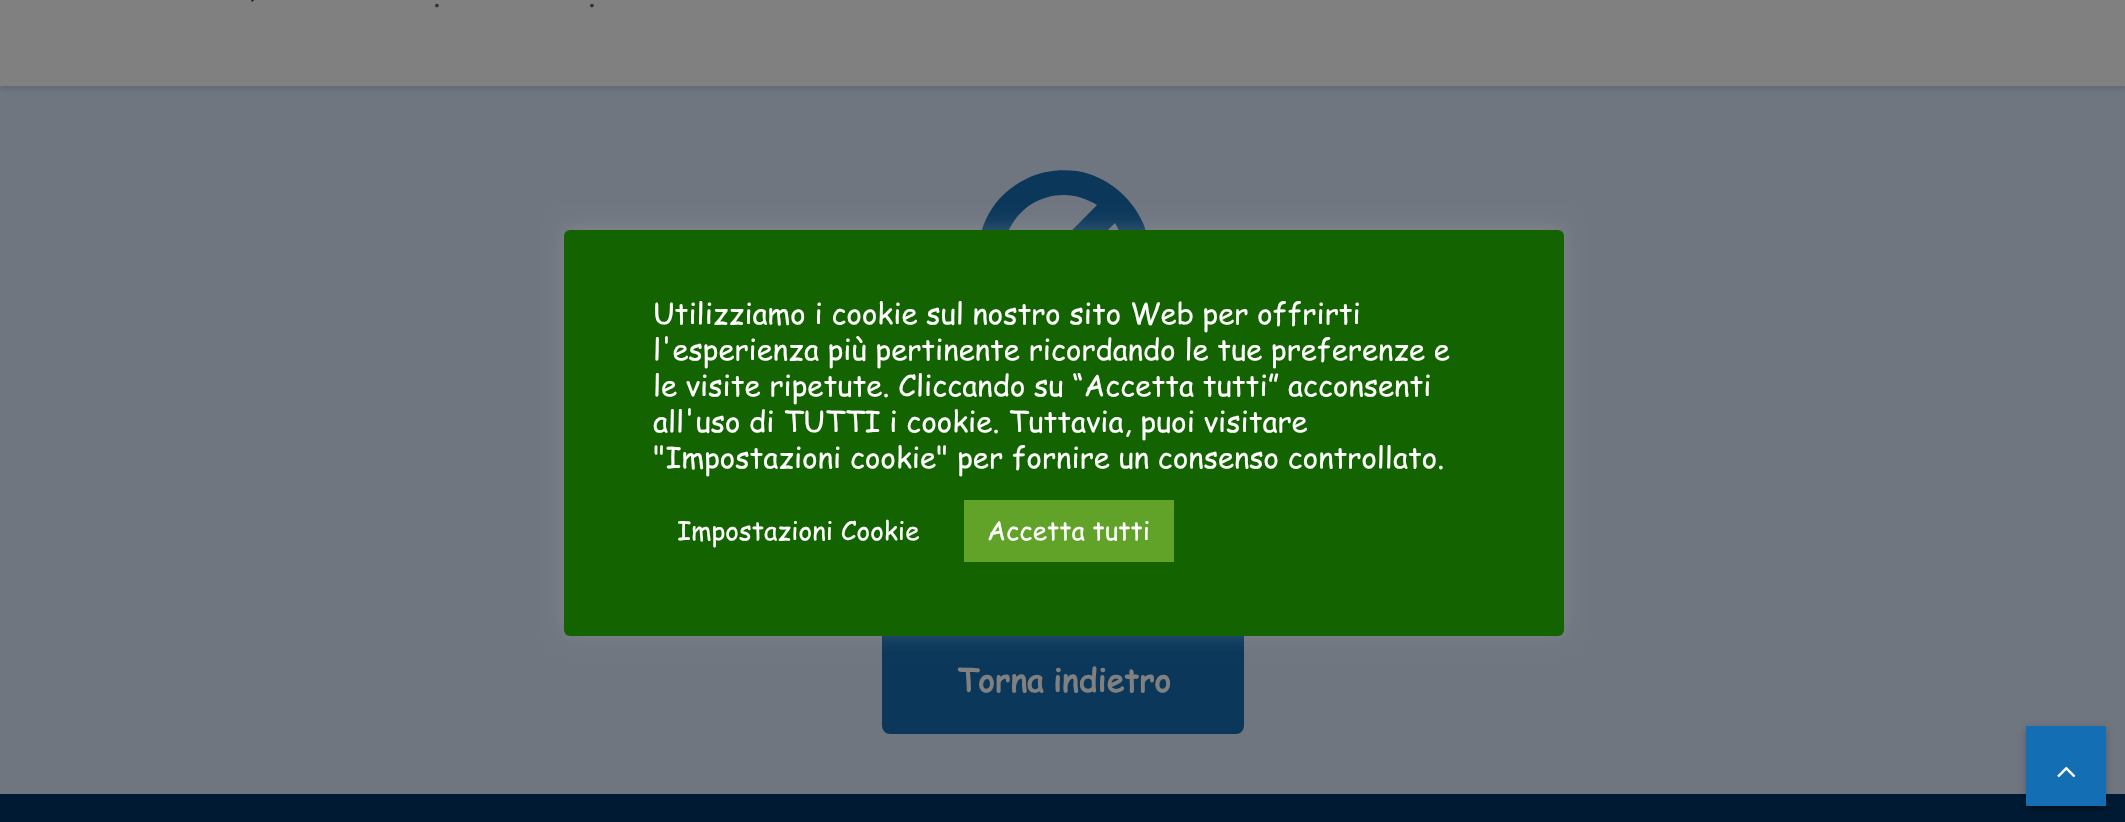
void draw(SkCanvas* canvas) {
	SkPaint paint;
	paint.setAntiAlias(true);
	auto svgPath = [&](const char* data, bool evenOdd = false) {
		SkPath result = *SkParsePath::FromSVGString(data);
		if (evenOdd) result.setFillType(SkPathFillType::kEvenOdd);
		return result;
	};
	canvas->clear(0xff6f7680);
	paint.setColor(0x26000000);
	paint.setMaskFilter(SkMaskFilter::MakeBlur(kNormal_SkBlurStyle, 3));
	canvas->drawRect(SkRect::MakeXYWH(0, -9, 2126, 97), paint);
	paint.setMaskFilter(nullptr);
	paint.setColor(0xff808080);
	canvas->drawRect(SkRect::MakeXYWH(0, 0, 2125, 86), paint);
	canvas->drawImageRect(SkImages::DeferredFromEncodedData(SkData::MakeFromFileName("img1.png")), SkRect::MakeXYWH(251, 0, 3, 2), SkSamplingOptions());
	SkFont f1(fontMgr->matchFamilyStyle("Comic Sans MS", SkFontStyle::Normal()), 30);
	f1.setSubpixel(true);
	paint.setColor(0xff333333);
	canvas->drawString(".", 433, 6, f1, paint);
	canvas->drawString(".", 588, 6, f1, paint);
	paint.setColor(0xff0a375a);
	canvas->drawPath(svgPath("M1124 256C1124 244 1121 233 1115 223L1031 307C1071 334 1124 304 1124 256ZM1013 290L1097 205C1087 199 1076 195 1064 195C1015 195 987 249 1013 290ZM1143 223C1161 266 1140 317 1097 335C1077 344 1055 345 1034 337C964 311 958 212 1026 179C1042 171 1059 169 1077 171C1106 176 1131 196 1143 223Z"), paint);
	canvas->drawRoundRect(SkRect::MakeXYWH(884, 628, 358, 104), 6, 6, paint);
	paint.setStroke(true);
	paint.setStrokeWidth(4);
	canvas->drawRoundRect(SkRect::MakeXYWH(884, 628, 358, 104), 6, 6, paint);
	SkFont f2(fontMgr->matchFamilyStyle("Comic Sans MS", SkFontStyle::Bold()), 32);
	f2.setSubpixel(true);
	paint.setStroke(false);
	paint.setColor(0xff808080);
	canvas->drawString("Torna indietro", 956, 692, f2, paint);
	paint.setColor(0xff001a33);
	canvas->drawRect(SkRect::MakeXYWH(0, 794, 2125, 28), paint);
	paint.setColor(0x4dacabab);
	paint.setMaskFilter(SkMaskFilter::MakeBlur(kNormal_SkBlurStyle, 10));
	canvas->drawRoundRect(SkRect::MakeXYWH(564, 228, 1000, 406), 6, 6, paint);
	paint.setMaskFilter(nullptr);
	paint.setColor(0xff136300);
	canvas->drawRoundRect(SkRect::MakeXYWH(564, 230, 1000, 406), 6, 6, paint);
	SkFont f3(fontMgr->matchFamilyStyle("Comic Sans MS", SkFontStyle::Normal()), 29.3);
	f3.setSubpixel(true);
	paint.setColor(0xffffffff);
	canvas->drawString("Utilizziamo i cookie sul nostro sito Web per offrirti", 653, 324, f3, paint);
	canvas->drawString("l'esperienza più pertinente ricordando le tue preferenze e", 653, 360, f3, paint);
	canvas->drawString("le visite ripetute. Cliccando su “Accetta tutti” acconsenti", 653, 396, f3, paint);
	canvas->drawString("all'uso di TUTTI i cookie. Tuttavia, puoi visitare", 653, 432, f3, paint);
	canvas->drawString("\"Impostazioni cookie\" per fornire un consenso controllato.", 653, 468, f3, paint);
	SkFont f4(fontMgr->matchFamilyStyle("Comic Sans MS", SkFontStyle::Normal()), 26);
	f4.setSubpixel(true);
	canvas->drawString("Impostazioni Cookie", 677, 540, f4, paint);
	paint.setColor(0xff61a229);
	canvas->drawRect(SkRect::MakeXYWH(964, 500, 210, 62), paint);
	paint.setColor(0xffffffff);
	canvas->drawString("Accetta tutti", 987, 540, f4, paint);
	paint.setColor(0x1f000000);
	paint.setMaskFilter(SkMaskFilter::MakeBlur(kNormal_SkBlurStyle, 5));
	canvas->drawRect(SkRect::MakeXYWH(2026, 728, 80, 80), paint);
	paint.setMaskFilter(nullptr);
	paint.setColor(0x33000000);
	paint.setMaskFilter(SkMaskFilter::MakeBlur(kNormal_SkBlurStyle, 1));
	canvas->drawRect(SkRect::MakeXYWH(2030, 736, 72, 72), paint);
	paint.setMaskFilter(nullptr);
	paint.setColor(0x24000000);
	paint.setMaskFilter(SkMaskFilter::MakeBlur(kNormal_SkBlurStyle, 2));
	canvas->drawRect(SkRect::MakeXYWH(2026, 730, 80, 80), paint);
	paint.setMaskFilter(nullptr);
	paint.setColor(0xff146eb4);
	canvas->drawRect(SkRect::MakeXYWH(2026, 726, 80, 80), paint);
	canvas->drawImageRect(SkImages::DeferredFromEncodedData(SkData::MakeFromFileName("img2.png")), SkRect::MakeXYWH(2057, 766, 19, 12), SkSamplingOptions());
}
